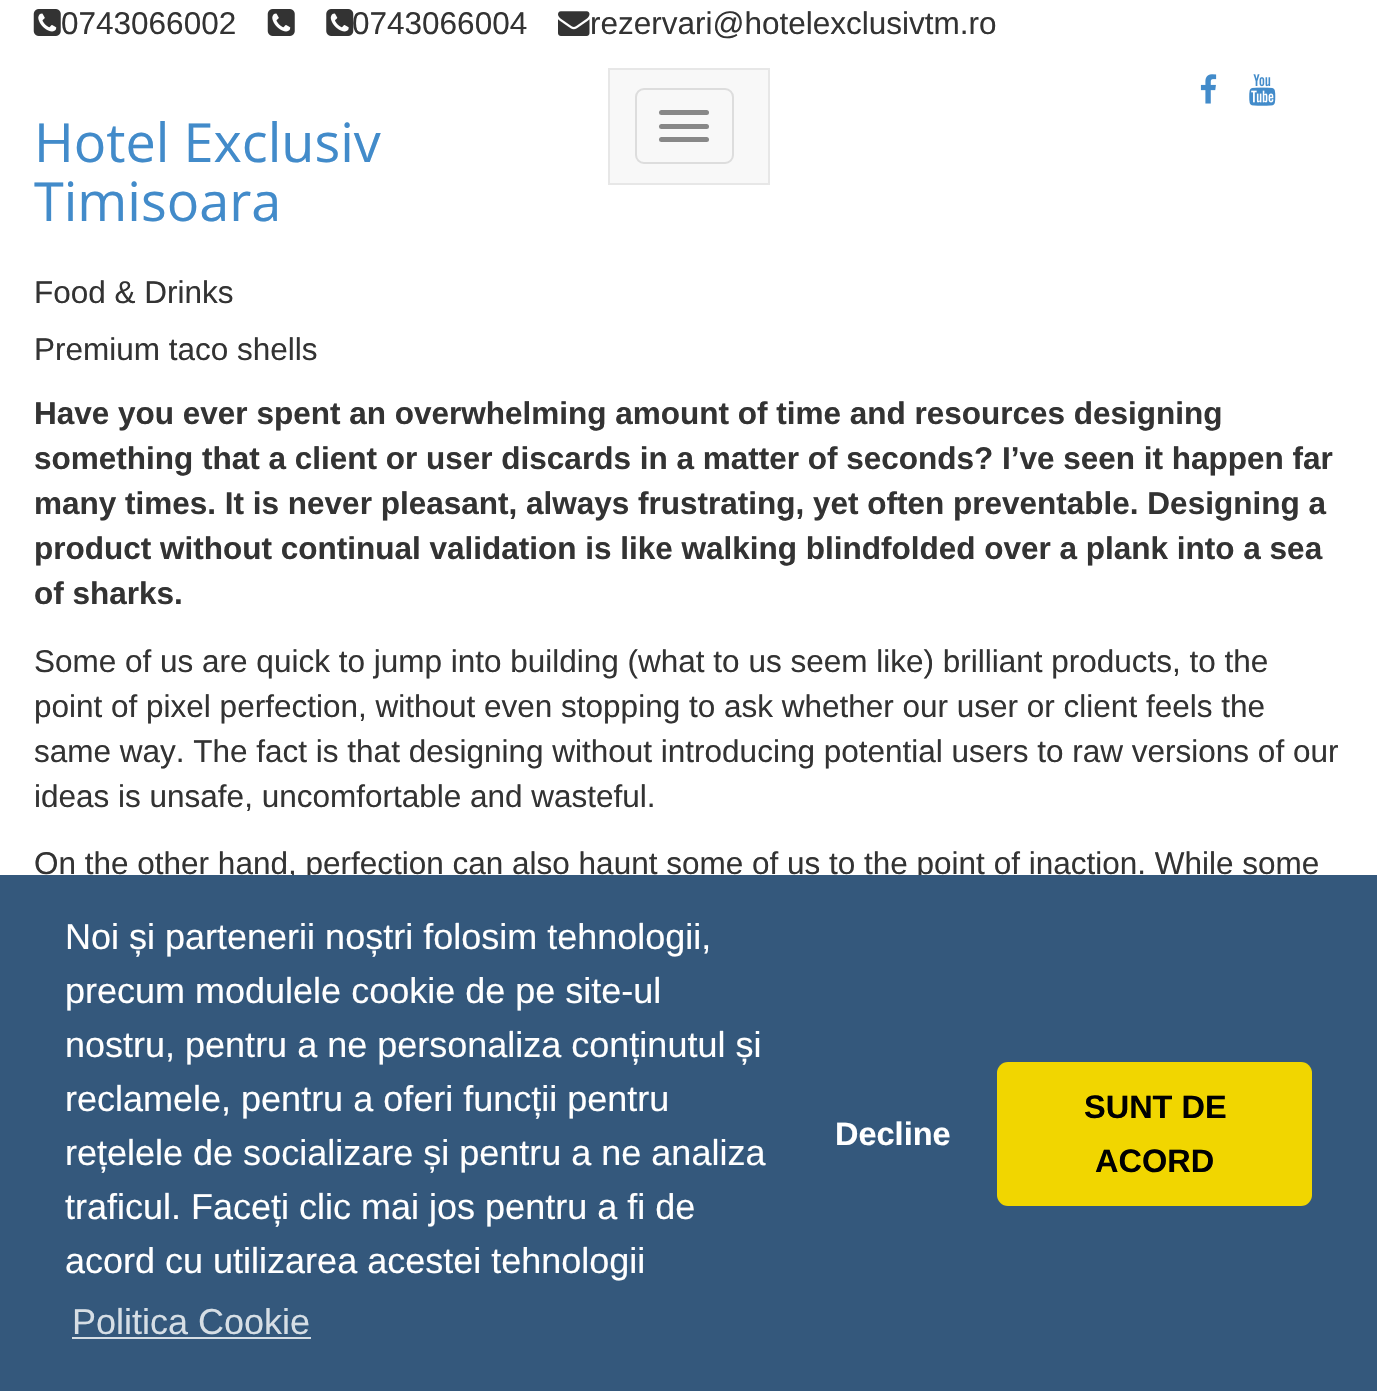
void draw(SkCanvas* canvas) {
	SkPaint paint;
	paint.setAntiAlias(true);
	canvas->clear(0xffffffff);
	canvas->drawImageRect(SkImages::DeferredFromEncodedData(SkData::MakeFromFileName("img1.png")), SkRect::MakeXYWH(33, 9, 28, 27), SkSamplingOptions());
	SkFont f1(fontMgr->matchFamilyStyle("Liberation Sans", SkFontStyle::Normal()), 31.5);
	f1.setSubpixel(true);
	paint.setColor(0xff333333);
	canvas->drawString("0743066002", 61, 34, f1, paint);
	canvas->drawImageRect(SkImages::DeferredFromEncodedData(SkData::MakeFromFileName("img1.png")), SkRect::MakeXYWH(267, 9, 28, 27), SkSamplingOptions());
	canvas->drawImageRect(SkImages::DeferredFromEncodedData(SkData::MakeFromFileName("img2.png")), SkRect::MakeXYWH(326, 9, 28, 27), SkSamplingOptions());
	canvas->drawString("0743066004", 352, 34, f1, paint);
	canvas->drawImageRect(SkImages::DeferredFromEncodedData(SkData::MakeFromFileName("img3.png")), SkRect::MakeXYWH(558, 11, 32, 25), SkSamplingOptions());
	canvas->drawString("rezervari@hotelexclusivtm.ro", 590, 34, f1, paint);
	paint.setColor(0xfff8f8f8);
	canvas->drawRect(SkRect::MakeXYWH(609, 69, 160, 115), paint);
	paint.setStroke(true);
	paint.setStrokeWidth(2);
	paint.setColor(0xffe7e7e7);
	canvas->drawRect(SkRect::MakeXYWH(609, 69, 160, 115), paint);
	paint.setColor(0xffdddddd);
	canvas->drawRoundRect(SkRect::MakeXYWH(636, 89, 97, 74), 8, 8, paint);
	paint.setStroke(false);
	paint.setColor(0xff888888);
	canvas->drawRoundRect(SkRect::MakeXYWH(659, 110, 50, 5), 2.5, 2.5, paint);
	canvas->drawRoundRect(SkRect::MakeXYWH(659, 124, 50, 5), 2.5, 2.5, paint);
	canvas->drawRoundRect(SkRect::MakeXYWH(659, 137, 50, 5), 2.5, 2.5, paint);
	canvas->drawImageRect(SkImages::DeferredFromEncodedData(SkData::MakeFromFileName("img4.png")), SkRect::MakeXYWH(1200, 74, 17, 30), SkSamplingOptions());
	canvas->drawImageRect(SkImages::DeferredFromEncodedData(SkData::MakeFromFileName("img5.png")), SkRect::MakeXYWH(1249, 74, 27, 32), SkSamplingOptions());
	SkFont f2(fontMgr->matchFamilyStyle("Open Sans", SkFontStyle::Normal()), 54);
	f2.setSubpixel(true);
	paint.setColor(0xff428bca);
	canvas->drawString("Hotel Exclusiv", 34, 162, f2, paint);
	canvas->drawString("Timisoara", 34, 221, f2, paint);
	paint.setColor(0xff333333);
	canvas->drawString("Food & Drinks", 34, 303, f1, paint);
	canvas->drawString("Premium taco shells", 34, 360, f1, paint);
	SkFont f3(fontMgr->matchFamilyStyle("Liberation Sans", SkFontStyle::Bold()), 31.5);
	f3.setSubpixel(true);
	canvas->drawString("Have you ever spent an overwhelming amount of time and resources designing", 34, 424, f3, paint);
	canvas->drawString("something that a client or user discards in a matter of seconds? I’ve seen it happen far", 34, 469, f3, paint);
	canvas->drawString("many times. It is never pleasant, always frustrating, yet often preventable. Designing a", 34, 514, f3, paint);
	canvas->drawString("product without continual validation is like walking blindfolded over a plank into a sea", 34, 559, f3, paint);
	canvas->drawString("of sharks.", 34, 604, f3, paint);
	canvas->drawString("Some of us are quick to jump into building (what to us seem like) brilliant products, to the", 34, 672, f1, paint);
	canvas->drawString("point of pixel perfection, without even stopping to ask whether our user or client feels the", 34, 717, f1, paint);
	canvas->drawString("same way. The fact is that designing without introducing potential users to raw versions of our", 34, 762, f1, paint);
	canvas->drawString("ideas is unsafe, uncomfortable and wasteful.", 34, 807, f1, paint);
	canvas->drawString("On the other hand, perfection can also haunt some of us to the point of inaction. While some", 34, 874, f1, paint);
	paint.setColor(0xff34587c);
	canvas->drawRect(SkRect::MakeXYWH(0, 875, 1377, 516), paint);
	SkFont f4(fontMgr->matchFamilyStyle("Liberation Sans", SkFontStyle::Normal()), 36);
	f4.setSubpixel(true);
	paint.setColor(0xffffffff);
	canvas->drawString("Noi și partenerii noștri folosim tehnologii,", 65, 949, f4, paint);
	canvas->drawString("precum modulele cookie de pe site-ul", 65, 1003, f4, paint);
	canvas->drawString("nostru, pentru a ne personaliza conținutul și", 65, 1057, f4, paint);
	canvas->drawString("reclamele, pentru a oferi funcții pentru", 65, 1111, f4, paint);
	canvas->drawString("rețelele de socializare și pentru a ne analiza", 65, 1165, f4, paint);
	canvas->drawString("traficul. Faceți clic mai jos pentru a fi de", 65, 1219, f4, paint);
	canvas->drawString("acord cu utilizarea acestei tehnologii", 65, 1273, f4, paint);
	paint.setColor(0xffd6dee5);
	canvas->drawString("Politica Cookie", 72, 1334, f4, paint);
	canvas->drawRect(SkRect::MakeXYWH(72, 1337, 239, 2), paint);
	SkFont f5(fontMgr->matchFamilyStyle("Liberation Sans", SkFontStyle::Bold()), 32.5);
	f5.setSubpixel(true);
	paint.setColor(0xffffffff);
	canvas->drawString("Decline", 835, 1145, f5, paint);
	paint.setColor(0xfff1d600);
	canvas->drawRoundRect(SkRect::MakeXYWH(997, 1062, 315, 144), 11, 11, paint);
	paint.setColor(0xff000000);
	canvas->drawString("SUNT DE", 1084, 1118, f5, paint);
	canvas->drawString("ACORD", 1095, 1172, f5, paint);
}
